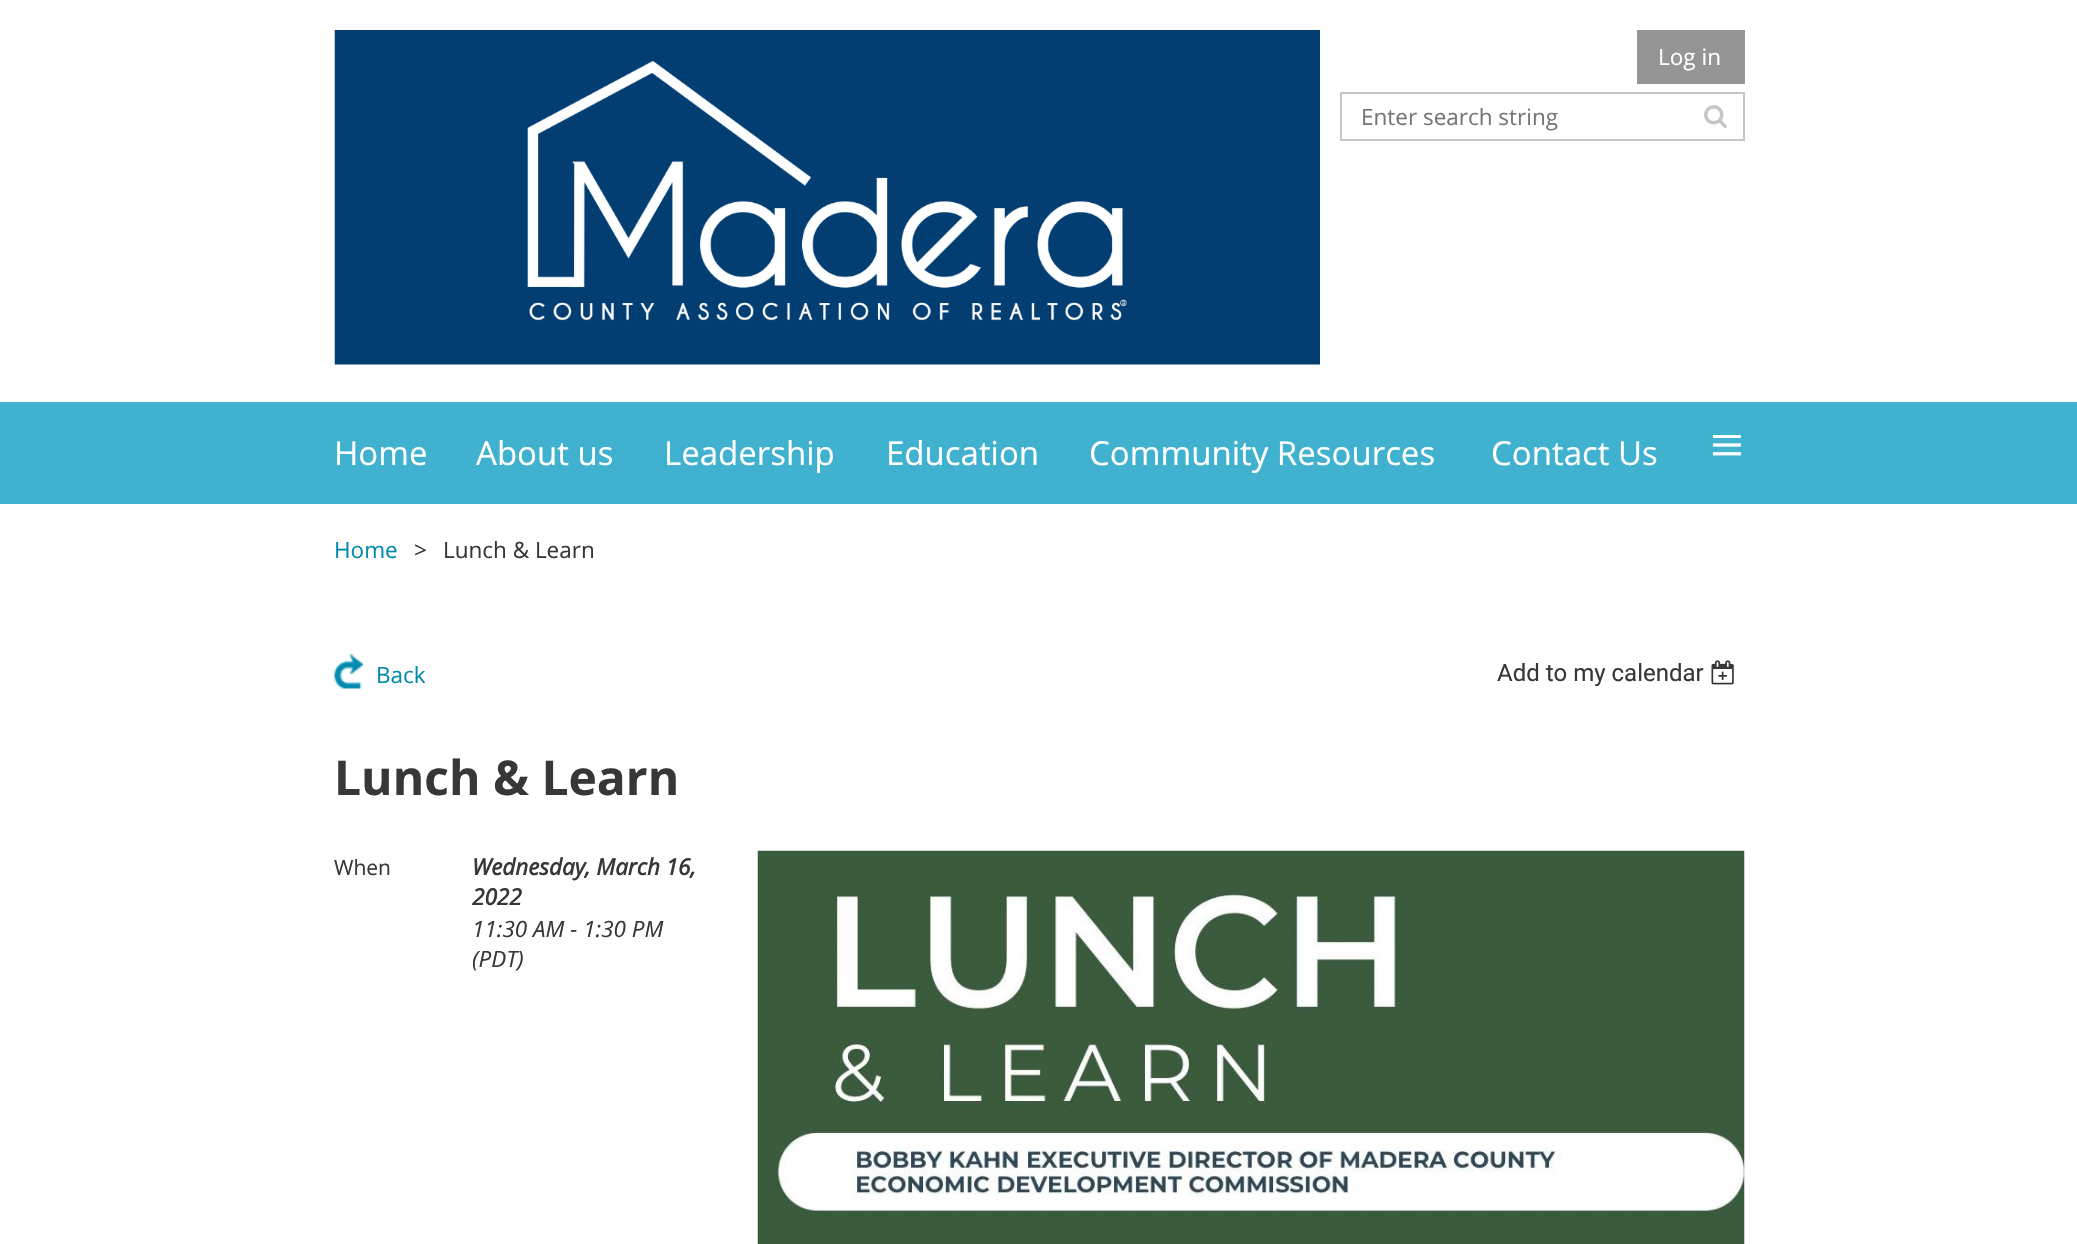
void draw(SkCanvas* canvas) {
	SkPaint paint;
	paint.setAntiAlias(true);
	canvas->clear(0xffffffff);
	canvas->drawImageRect(SkImages::DeferredFromEncodedData(SkData::MakeFromFileName("img1.png")), SkRect::MakeXYWH(334, 30, 986, 335), SkSamplingOptions());
	paint.setColor(0xff959595);
	canvas->drawRect(SkRect::MakeXYWH(1637, 30, 108, 54), paint);
	SkFont f1(fontMgr->matchFamilyStyle("Open Sans", SkFontStyle::Normal()), 22.5);
	f1.setSubpixel(true);
	paint.setColor(0xffffffff);
	canvas->drawString("Log in", 1658, 65, f1, paint);
	paint.setStroke(true);
	paint.setStrokeWidth(2);
	paint.setColor(0xffc6c6c6);
	canvas->drawRect(SkRect::MakeXYWH(1341, 93, 403, 47), paint);
	paint.setStroke(false);
	paint.setColor(0xff757575);
	canvas->drawString("Enter search string", 1361, 125, f1, paint);
	canvas->drawImageRect(SkImages::DeferredFromEncodedData(SkData::MakeFromFileName("img2.png")), SkRect::MakeXYWH(1704, 105, 23, 23), SkSamplingOptions());
	paint.setColor(0xff40b2cf);
	canvas->drawRect(SkRect::MakeXYWH(0, 402, 2077, 102), paint);
	SkFont f2(fontMgr->matchFamilyStyle("Open Sans", SkFontStyle::Normal()), 33);
	f2.setSubpixel(true);
	paint.setColor(0xffffffff);
	canvas->drawString("Home", 334, 465, f2, paint);
	canvas->drawString("About us", 476, 465, f2, paint);
	canvas->drawString("Leadership", 664, 465, f2, paint);
	canvas->drawString("Education", 886, 465, f2, paint);
	canvas->drawString("Community Resources", 1089, 465, f2, paint);
	canvas->drawString("Contact Us", 1491, 465, f2, paint);
	SkFont f3(fontMgr->matchFamilyStyle("Liberation Serif", SkFontStyle::Normal()), 60);
	f3.setSubpixel(true);
	canvas->drawString("≡", 1710, 465, f3, paint);
	paint.setColor(0xff008bae);
	canvas->drawString("Home", 334, 558, f1, paint);
	paint.setColor(0xff373737);
	canvas->drawString(">", 414, 558, f1, paint);
	canvas->drawString("Lunch & Learn", 443, 558, f1, paint);
	canvas->drawImageRect(SkImages::DeferredFromEncodedData(SkData::MakeFromFileName("img3.png")), SkRect::MakeXYWH(334, 654, 29, 35), SkSamplingOptions());
	paint.setColor(0xff008bae);
	canvas->drawString("Back", 376, 683, f1, paint);
	SkFont f4(fontMgr->matchFamilyStyle("Roboto", SkFontStyle::Normal()), 24);
	f4.setSubpixel(true);
	paint.setColor(0xff373737);
	canvas->drawString("Add to my calendar", 1497, 681, f4, paint);
	canvas->drawImageRect(SkImages::DeferredFromEncodedData(SkData::MakeFromFileName("img4.png")), SkRect::MakeXYWH(1711, 660, 23, 25), SkSamplingOptions());
	SkFont f5(fontMgr->matchFamilyStyle("Open Sans", SkFontStyle::Bold()), 48);
	f5.setSubpixel(true);
	canvas->drawString("Lunch & Learn", 334, 795, f5, paint);
	SkFont f6(fontMgr->matchFamilyStyle("Open Sans", SkFontStyle::Normal()), 21);
	f6.setSubpixel(true);
	canvas->drawString("When", 334, 875, f6, paint);
	SkFont f7(fontMgr->matchFamilyStyle("Open Sans", SkFontStyle::BoldItalic()), 22.5);
	f7.setSubpixel(true);
	canvas->drawString("Wednesday, March 16,", 472, 875, f7, paint);
	canvas->drawString("2022", 472, 905, f7, paint);
	SkFont f8(fontMgr->matchFamilyStyle("Open Sans", SkFontStyle::Italic()), 22.5);
	f8.setSubpixel(true);
	canvas->drawString("11:30 AM - 1:30 PM", 472, 937, f8, paint);
	canvas->save();
	canvas->clipRect(SkRect::MakeXYWH(473, 912, 240, 60));
	canvas->drawString("(PDT)", 472, 967, f8, paint);
	canvas->restore();
	canvas->drawImageRect(SkImages::DeferredFromEncodedData(SkData::MakeFromFileName("img5.png")), SkRect::MakeXYWH(757, 850, 988, 394), SkSamplingOptions());
}
